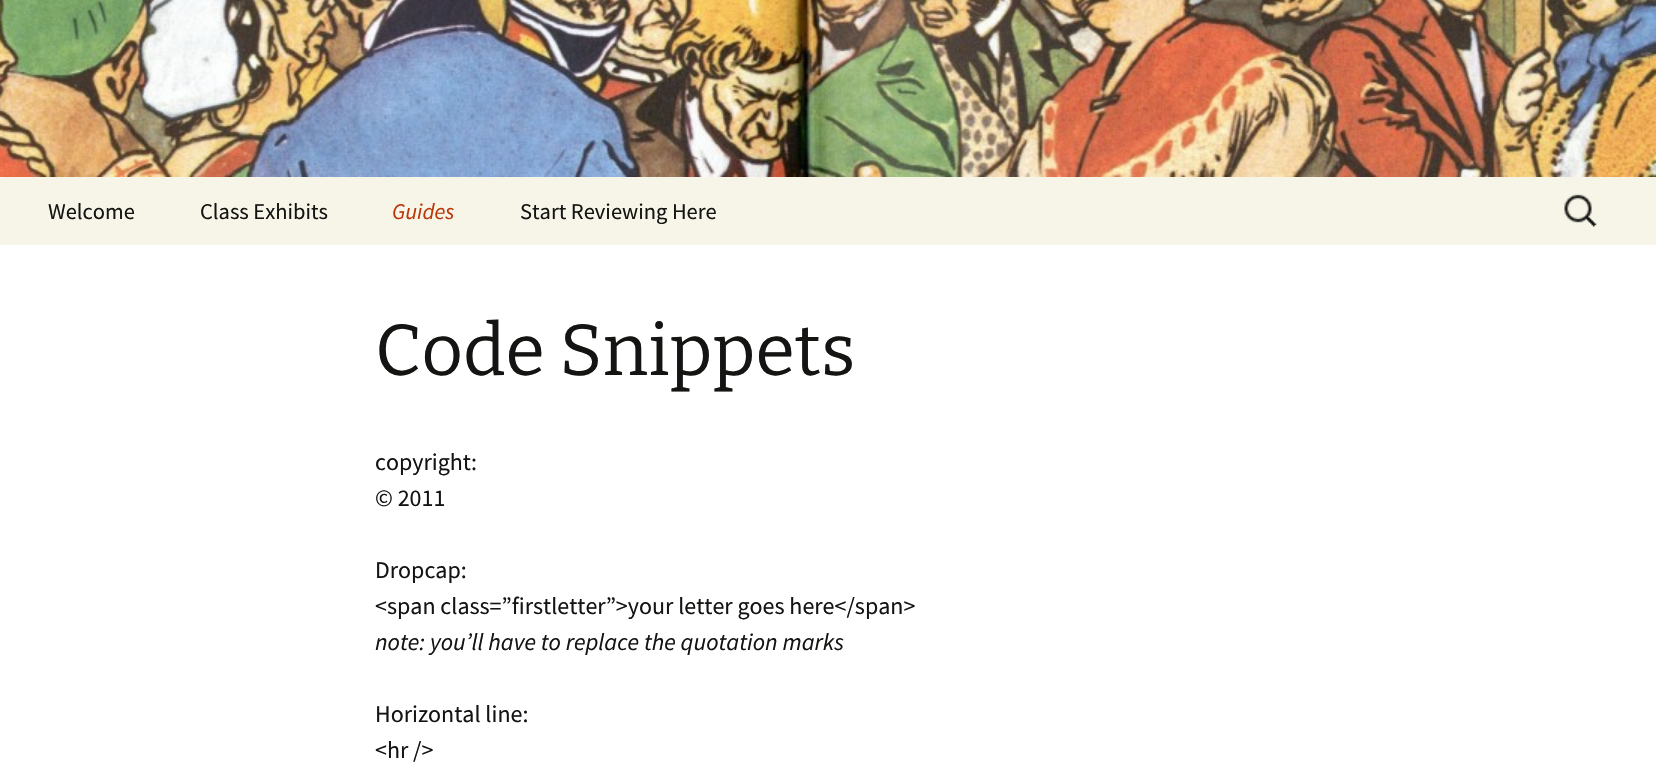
void draw(SkCanvas* canvas) {
	SkPaint paint;
	paint.setAntiAlias(true);
	canvas->clear(0xffffffff);
	canvas->drawImageRect(SkImages::DeferredFromEncodedData(SkData::MakeFromFileName("img1.png")), SkRect::MakeXYWH(0, 0, 1656, 177), SkSamplingOptions());
	paint.setColor(0xfff7f5e7);
	canvas->drawRect(SkRect::MakeXYWH(0, 177, 1656, 68), paint);
	SkFont f1(fontMgr->matchFamilyStyle("Source Sans Pro", SkFontStyle::Normal()), 22.5);
	f1.setSubpixel(true);
	paint.setColor(0xff141412);
	canvas->drawString("Welcome", 48, 219, f1, paint);
	canvas->drawString("Class Exhibits", 200, 219, f1, paint);
	SkFont f2(fontMgr->matchFamilyStyle("Source Sans Pro", SkFontStyle::Italic()), 22.5);
	f2.setSubpixel(true);
	paint.setColor(0xffbc360a);
	canvas->drawString("Guides", 392, 219, f2, paint);
	paint.setColor(0xff141412);
	canvas->drawString("Start Reviewing Here", 520, 219, f1, paint);
	canvas->drawImageRect(SkImages::DeferredFromEncodedData(SkData::MakeFromFileName("img2.png")), SkRect::MakeXYWH(1564, 194, 33, 33), SkSamplingOptions());
	SkFont f3(fontMgr->matchFamilyStyle("Bitter", SkFontStyle(100, SkFontStyle::kNormal_Width, SkFontStyle::kUpright_Slant)), 72);
	f3.setSubpixel(true);
	canvas->drawString("Code Snippets", 375, 375, f3, paint);
	SkFont f4(fontMgr->matchFamilyStyle("Source Sans Pro", SkFontStyle::Normal()), 24);
	f4.setSubpixel(true);
	canvas->drawString("copyright:", 375, 470, f4, paint);
	canvas->drawString("© 2011", 375, 506, f4, paint);
	canvas->drawString("Dropcap:", 375, 578, f4, paint);
	canvas->drawString("<span class=”firstletter”>your letter goes here</span>", 375, 614, f4, paint);
	SkFont f5(fontMgr->matchFamilyStyle("Source Sans Pro", SkFontStyle::Italic()), 24);
	f5.setSubpixel(true);
	canvas->drawString("note: you’ll have to replace the quotation marks", 375, 650, f5, paint);
	canvas->drawString("Horizontal line:", 375, 722, f4, paint);
	canvas->drawString("<hr />", 375, 758, f4, paint);
}
